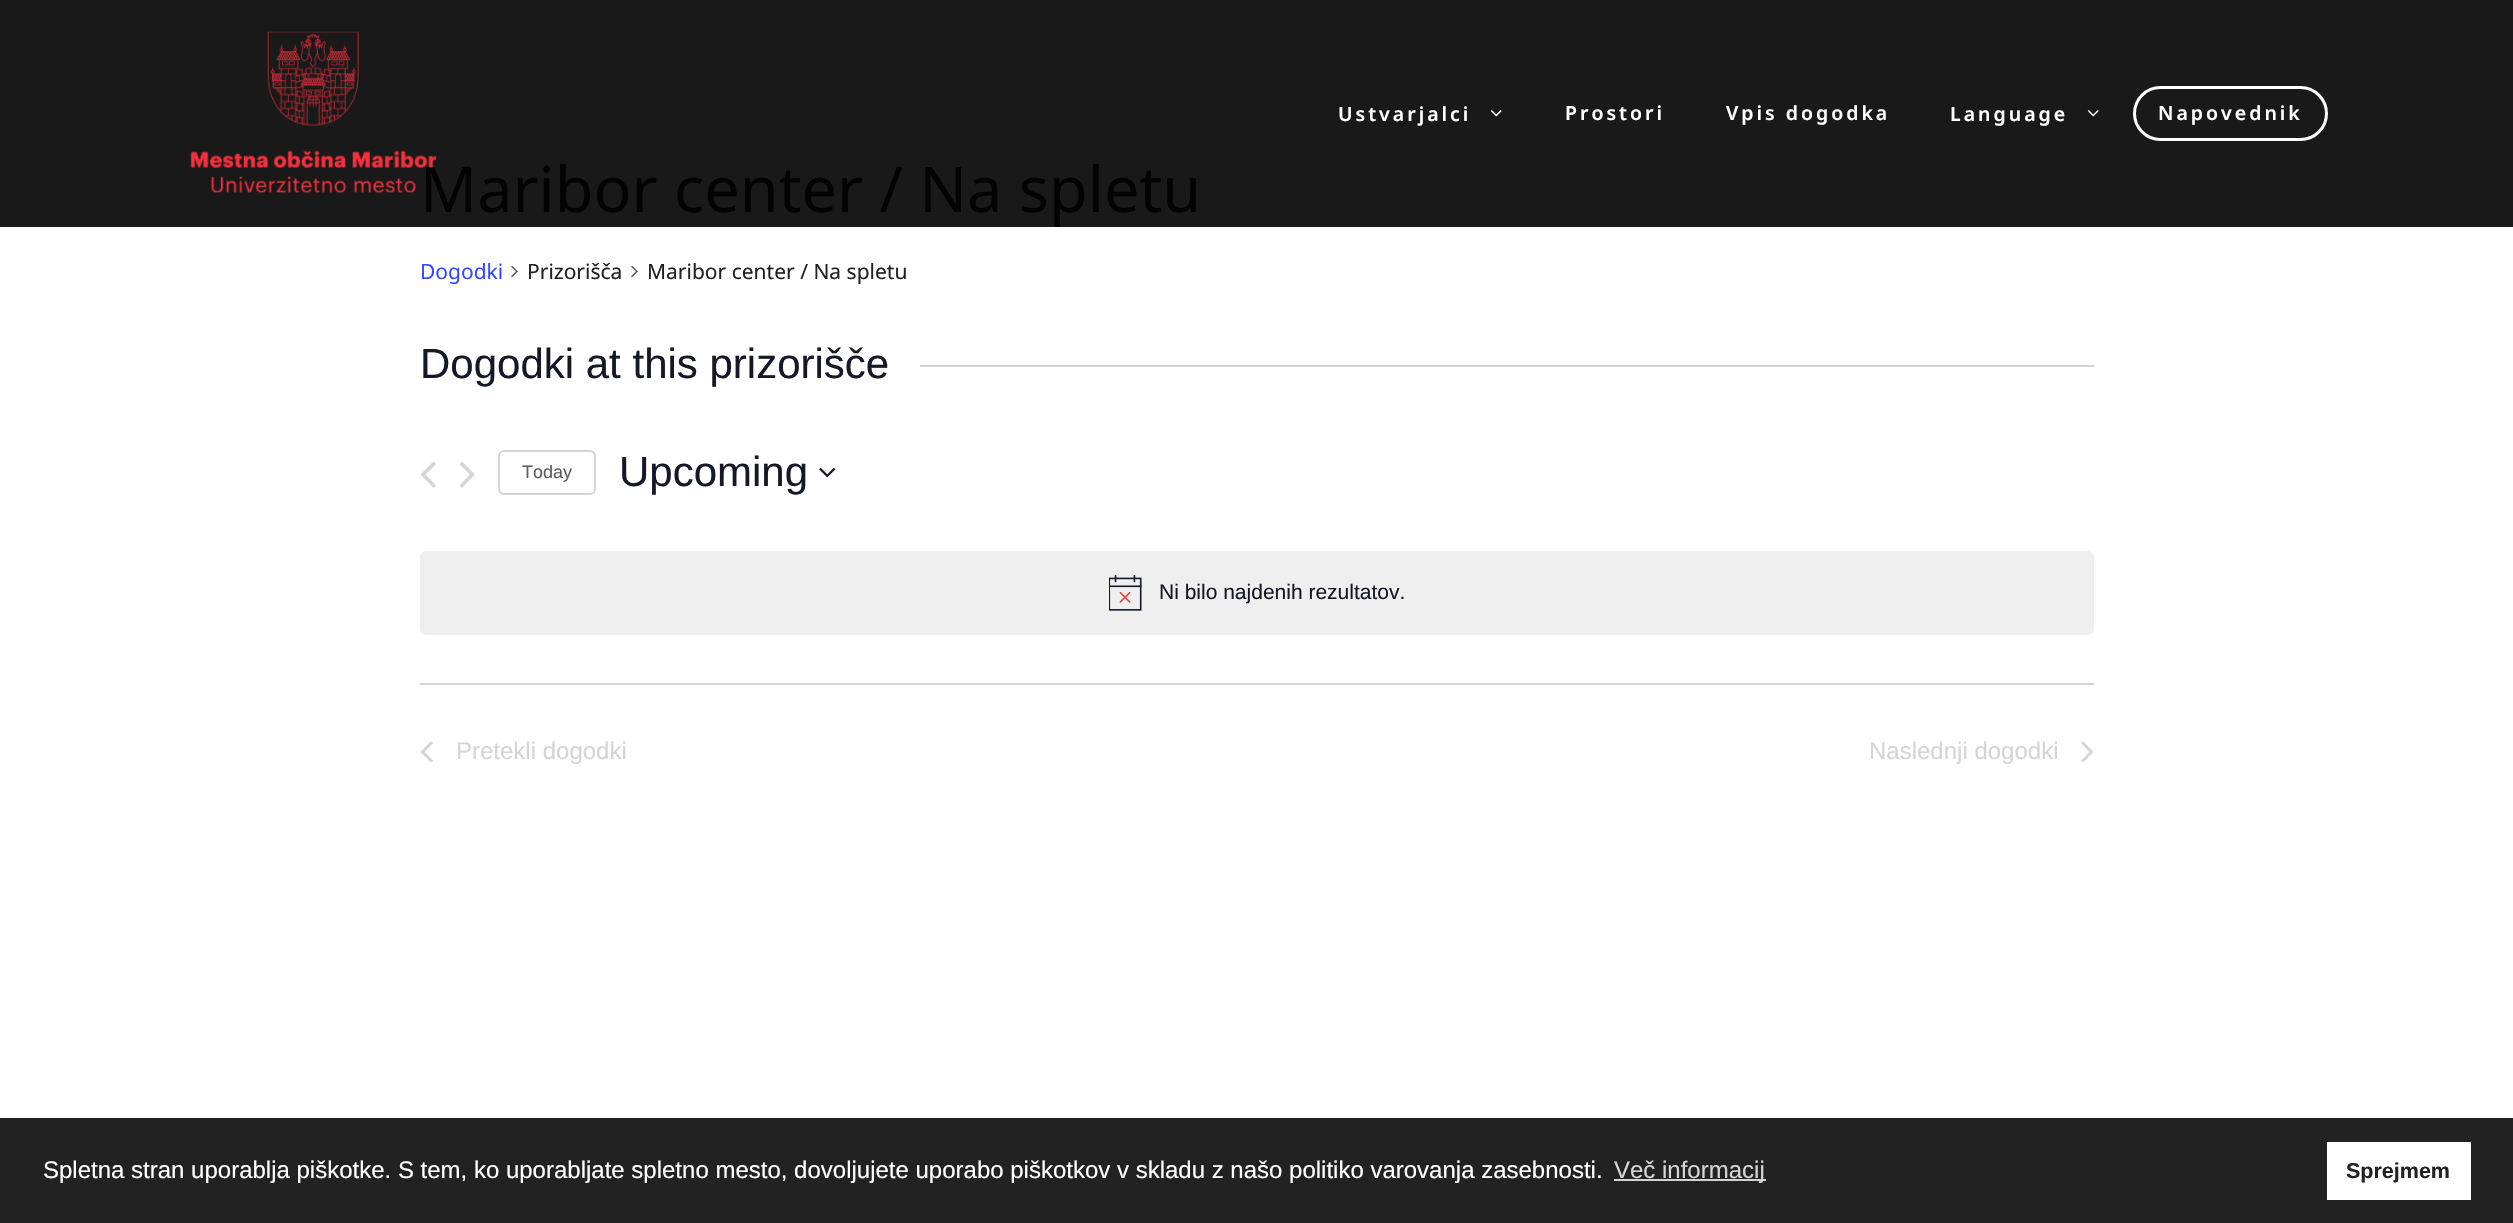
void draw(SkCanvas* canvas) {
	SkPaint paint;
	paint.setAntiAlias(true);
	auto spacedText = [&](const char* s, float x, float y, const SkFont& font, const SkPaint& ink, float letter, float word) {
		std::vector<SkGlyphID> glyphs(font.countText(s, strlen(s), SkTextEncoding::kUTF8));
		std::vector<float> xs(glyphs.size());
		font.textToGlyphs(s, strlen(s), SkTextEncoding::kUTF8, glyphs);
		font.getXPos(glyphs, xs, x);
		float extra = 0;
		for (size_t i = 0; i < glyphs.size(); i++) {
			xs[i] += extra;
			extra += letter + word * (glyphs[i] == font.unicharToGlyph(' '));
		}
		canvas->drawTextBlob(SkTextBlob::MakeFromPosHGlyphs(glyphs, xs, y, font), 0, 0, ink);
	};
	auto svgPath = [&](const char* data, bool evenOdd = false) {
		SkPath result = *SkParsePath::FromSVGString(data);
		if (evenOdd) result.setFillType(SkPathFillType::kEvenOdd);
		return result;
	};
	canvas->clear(0xffffffff);
	paint.setColor(0xff191919);
	canvas->drawRect(SkRect::MakeXYWH(0, 0, 2513, 227), paint);
	SkFont f1(fontMgr->matchFamilyStyle("Noto Sans", SkFontStyle::Normal()), 63);
	f1.setSubpixel(true);
	paint.setColor(0xff030303);
	canvas->drawString("Maribor center / Na spletu", 420, 212, f1, paint);
	canvas->drawImageRect(SkImages::DeferredFromEncodedData(SkData::MakeFromFileName("img1.png")), SkRect::MakeXYWH(190, 31, 247, 162), SkSamplingOptions());
	SkFont f2(fontMgr->matchFamilyStyle("Noto Sans", SkFontStyle(600, SkFontStyle::kNormal_Width, SkFontStyle::kUpright_Slant)), 19.5);
	f2.setSubpixel(true);
	paint.setColor(0xffffffff);
	spacedText("Ustvarjalci", 1338, 121, f2, paint, 3, 0);
	canvas->drawImageRect(SkImages::DeferredFromEncodedData(SkData::MakeFromFileName("img2.png")), SkRect::MakeXYWH(1490, 110, 12, 7), SkSamplingOptions());
	spacedText("Prostori", 1565, 120, f2, paint, 3, 0);
	spacedText("Vpis dogodka", 1726, 120, f2, paint, 3, 0);
	spacedText("Language", 1950, 121, f2, paint, 3, 0);
	canvas->drawImageRect(SkImages::DeferredFromEncodedData(SkData::MakeFromFileName("img2.png")), SkRect::MakeXYWH(2087, 110, 12, 7), SkSamplingOptions());
	paint.setStroke(true);
	paint.setStrokeWidth(3);
	canvas->drawRoundRect(SkRect::MakeXYWH(2134.5, 87.5, 192, 52), 26, 26, paint);
	paint.setStroke(false);
	spacedText("Napovednik", 2158, 120, f2, paint, 3, 0);
	SkFont f3(fontMgr->matchFamilyStyle("Noto Sans", SkFontStyle::Normal()), 21);
	f3.setSubpixel(true);
	paint.setColor(0xff334aff);
	canvas->drawString("Dogodki", 420, 279, f3, paint);
	canvas->drawImageRect(SkImages::DeferredFromEncodedData(SkData::MakeFromFileName("img3.png")), SkRect::MakeXYWH(511, 266, 7, 12), SkSamplingOptions());
	paint.setColor(0xff222222);
	canvas->drawString("Prizorišča", 527, 279, f3, paint);
	canvas->drawImageRect(SkImages::DeferredFromEncodedData(SkData::MakeFromFileName("img3.png")), SkRect::MakeXYWH(631, 266, 7, 12), SkSamplingOptions());
	canvas->drawString("Maribor center / Na spletu", 647, 279, f3, paint);
	SkFont f4(fontMgr->matchFamilyStyle("Liberation Sans", SkFontStyle::Normal()), 42);
	f4.setSubpixel(true);
	paint.setColor(0xff141827);
	canvas->drawString("Dogodki at this prizorišče", 420, 378, f4, paint);
	paint.setColor(0xffd5d5d5);
	canvas->drawRect(SkRect::MakeXYWH(920, 365, 1174, 2), paint);
	canvas->drawPath(svgPath("M436 485.5L433.5 488L420.5 474.5L433.5 461.5L436 464L425.5 474.5ZM459.5 464L462 461.5L475 474.5L462 488L459.5 485.5L470 474.5Z"), paint);
	paint.setStroke(true);
	paint.setStrokeWidth(2);
	canvas->drawRoundRect(SkRect::MakeXYWH(499, 451, 96, 43), 5, 5, paint);
	SkFont f5(fontMgr->matchFamilyStyle("Liberation Sans", SkFontStyle::Normal()), 18);
	f5.setSubpixel(true);
	paint.setStroke(false);
	paint.setColor(0xff5d5d5d);
	canvas->drawString("Today", 522, 478, f5, paint);
	paint.setColor(0xff141827);
	canvas->drawString("Upcoming", 619, 486, f4, paint);
	canvas->drawImageRect(SkImages::DeferredFromEncodedData(SkData::MakeFromFileName("img4.png")), SkRect::MakeXYWH(819, 467, 17, 11), SkSamplingOptions());
	paint.setColor(0xffefeff0);
	canvas->drawRoundRect(SkRect::MakeXYWH(420, 551, 1674, 84), 6, 6, paint);
	canvas->drawImageRect(SkImages::DeferredFromEncodedData(SkData::MakeFromFileName("img5.png")), SkRect::MakeXYWH(1109, 575, 33, 36), SkSamplingOptions());
	SkFont f6(fontMgr->matchFamilyStyle("Liberation Sans", SkFontStyle::Normal()), 21);
	f6.setSubpixel(true);
	paint.setColor(0xff141827);
	canvas->drawString("Ni bilo najdenih rezultatov.", 1159, 599, f6, paint);
	paint.setColor(0xffd5d5d5);
	canvas->drawRect(SkRect::MakeXYWH(420, 683, 1674, 2), paint);
	canvas->drawPath(svgPath("M433 760.5L431 762.5L420.5 752L431 741L433 743L424.5 752Z"), paint);
	SkFont f7(fontMgr->matchFamilyStyle("Liberation Sans", SkFontStyle::Normal()), 24);
	f7.setSubpixel(true);
	canvas->drawString("Pretekli dogodki", 456, 759, f7, paint);
	canvas->drawString("Naslednji dogodki", 1869, 759, f7, paint);
	canvas->drawPath(svgPath("M2081 743L2083 741L2093.5 752L2083 762.5L2081 760.5L2089.5 752Z"), paint);
	paint.setColor(0xff222222);
	canvas->drawRect(SkRect::MakeXYWH(0, 1118, 2513, 105), paint);
	paint.setColor(0xffffffff);
	canvas->drawString("Spletna stran uporablja piškotke. S tem, ko uporabljate spletno mesto, dovoljujete uporabo piškotkov v skladu z našo politiko varovanja zasebnosti.", 43, 1178, f7, paint);
	paint.setColor(0xffd3d3d3);
	canvas->drawRect(SkRect::MakeXYWH(1614, 1179, 152, 2), paint);
	paint.setColor(0xffd5d5d5);
	canvas->drawString("Več informacij", 1614, 1178, f7, paint);
	paint.setColor(0xffffffff);
	canvas->drawRect(SkRect::MakeXYWH(2327, 1142, 144, 58), paint);
	SkFont f8(fontMgr->matchFamilyStyle("Liberation Sans", SkFontStyle::Bold()), 21.5);
	f8.setSubpixel(true);
	paint.setColor(0xff222222);
	canvas->drawString("Sprejmem", 2346, 1178, f8, paint);
}
